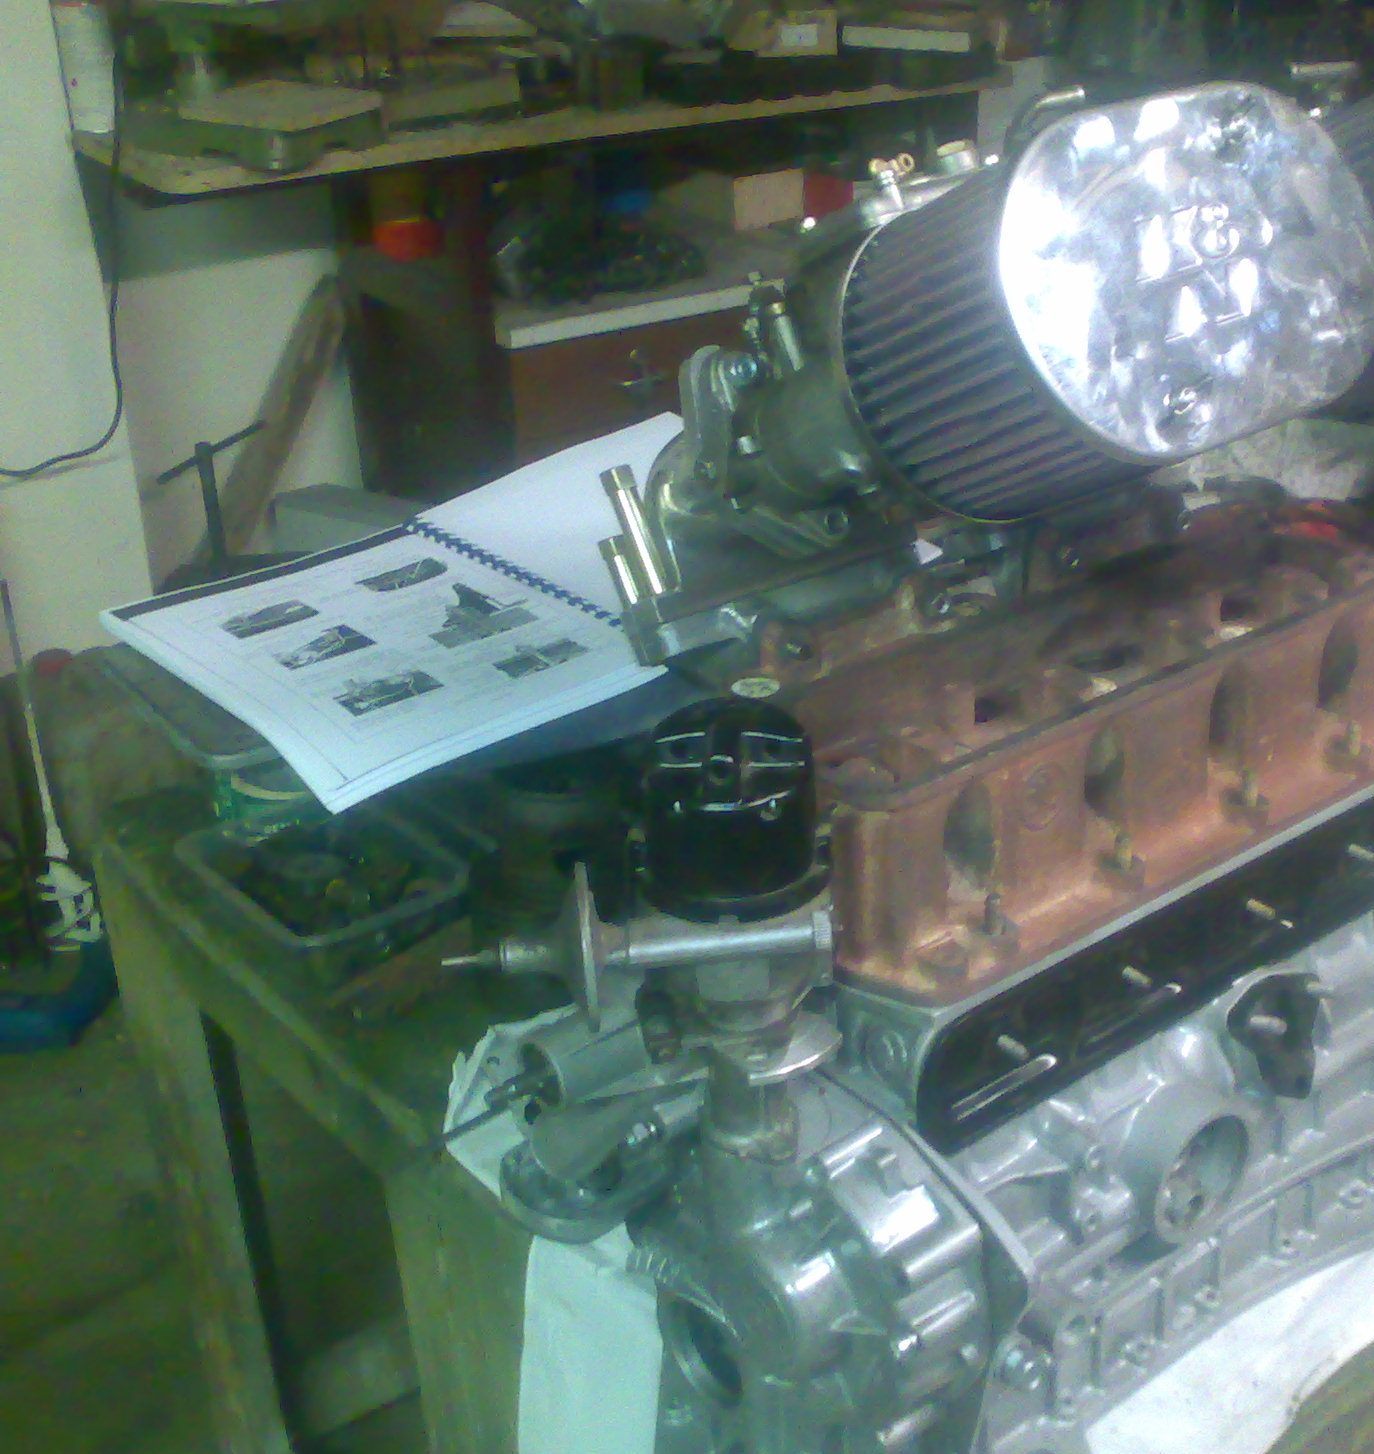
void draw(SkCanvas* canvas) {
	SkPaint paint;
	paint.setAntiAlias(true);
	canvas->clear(0xffffffff);
	canvas->drawImageRect(SkImages::DeferredFromEncodedData(SkData::MakeFromFileName("img1.png")), SkRect::MakeXYWH(0, 0, 1374, 1454), SkSamplingOptions());
}
